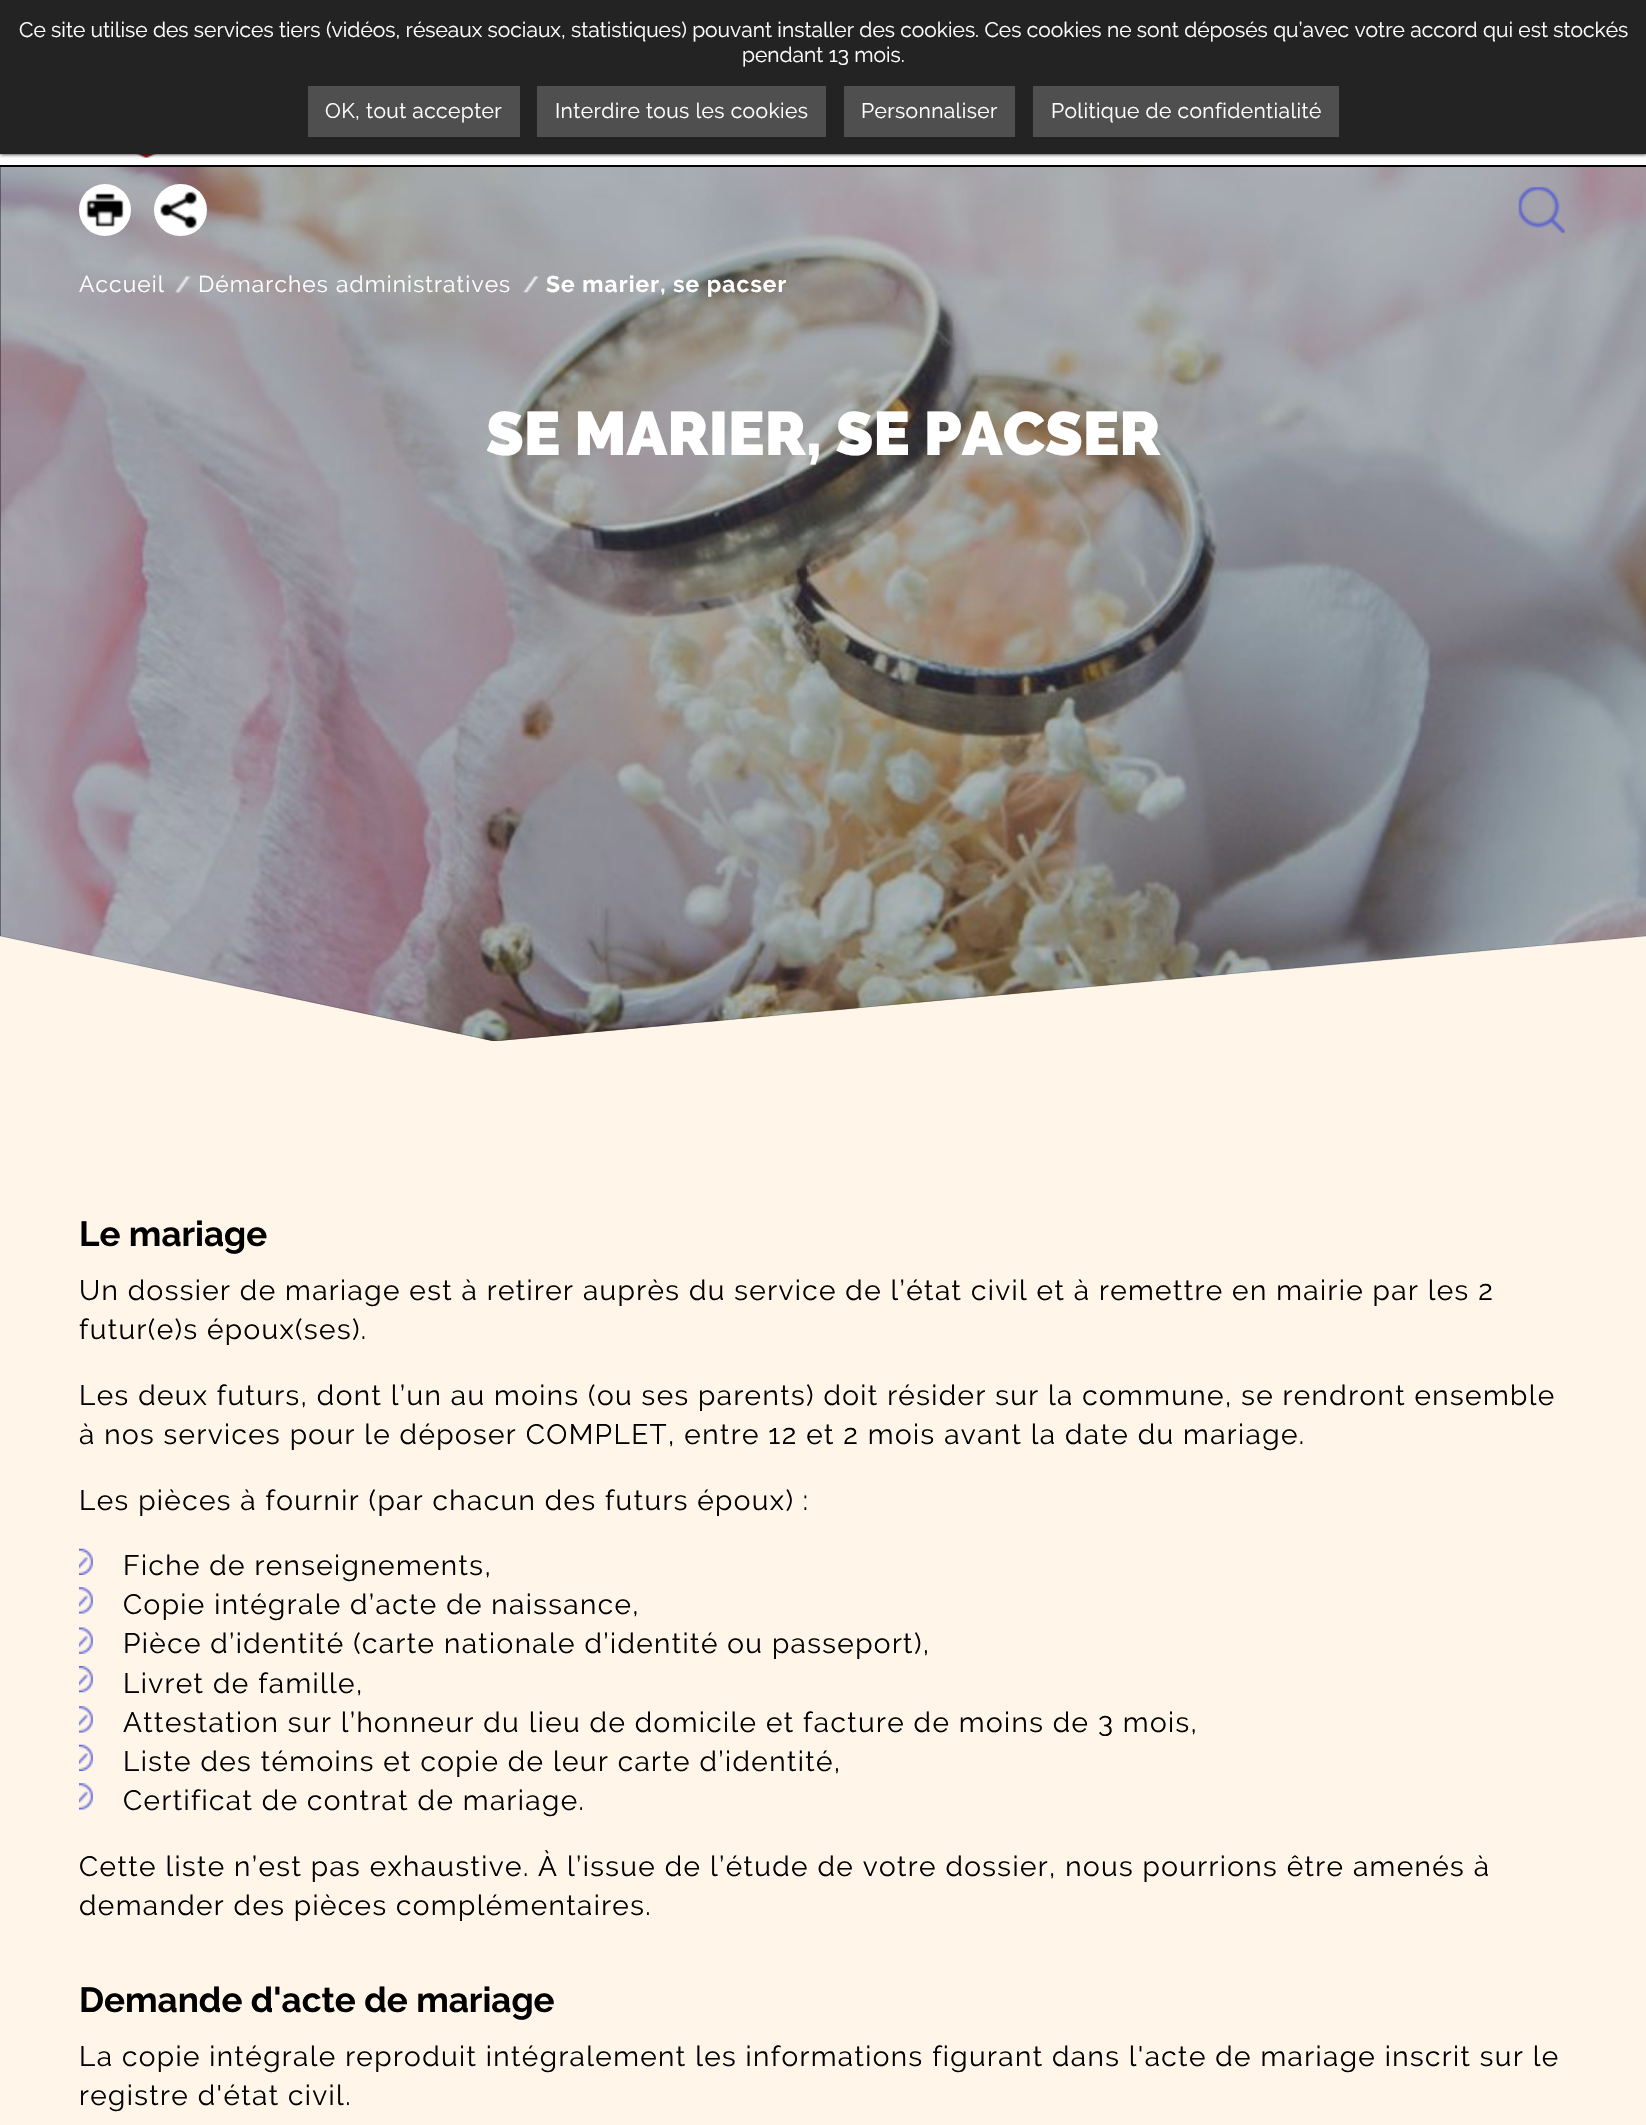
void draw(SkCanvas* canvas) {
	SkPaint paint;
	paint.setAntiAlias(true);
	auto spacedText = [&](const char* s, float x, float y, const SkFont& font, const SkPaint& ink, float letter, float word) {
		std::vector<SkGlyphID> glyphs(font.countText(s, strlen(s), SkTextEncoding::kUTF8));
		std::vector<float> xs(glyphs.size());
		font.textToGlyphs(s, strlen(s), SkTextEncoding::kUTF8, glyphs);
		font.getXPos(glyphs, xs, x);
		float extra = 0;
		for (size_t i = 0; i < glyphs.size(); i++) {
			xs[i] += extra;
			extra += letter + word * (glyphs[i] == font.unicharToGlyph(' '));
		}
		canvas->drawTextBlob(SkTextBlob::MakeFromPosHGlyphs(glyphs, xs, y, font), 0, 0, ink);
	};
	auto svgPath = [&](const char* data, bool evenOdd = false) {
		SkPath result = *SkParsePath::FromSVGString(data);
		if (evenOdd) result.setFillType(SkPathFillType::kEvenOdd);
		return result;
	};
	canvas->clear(0xffffffff);
	canvas->drawImageRect(SkImages::DeferredFromEncodedData(SkData::MakeFromFileName("img1.png")), SkRect::MakeXYWH(136, 154, 21, 4), SkSamplingOptions());
	paint.setColor(0xff000000);
	paint.setMaskFilter(SkMaskFilter::MakeBlur(kNormal_SkBlurStyle, 2));
	canvas->drawRect(SkRect::MakeXYWH(0, 0, 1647, 154), paint);
	paint.setMaskFilter(nullptr);
	paint.setColor(0xff232323);
	canvas->drawRect(SkRect::MakeXYWH(0, 0, 1646, 154), paint);
	SkFont f1(fontMgr->matchFamilyStyle("Raleway", SkFontStyle::Normal()), 21);
	f1.setSubpixel(true);
	paint.setColor(0xffffffff);
	canvas->drawString("Ce site utilise des services tiers (vidéos, réseaux sociaux, statistiques) pouvant installer des cookies. Ces cookies ne sont déposés qu’avec votre accord qui est stockés", 19, 37, f1, paint);
	canvas->drawString("pendant 13 mois.", 742, 62, f1, paint);
	paint.setColor(0xff4f4f4f);
	canvas->drawRect(SkRect::MakeXYWH(308, 86, 212, 51), paint);
	paint.setColor(0xffffffff);
	spacedText("OK, tout accepter", 325, 118, f1, paint, 0.4, 0);
	paint.setColor(0xff4f4f4f);
	canvas->drawRect(SkRect::MakeXYWH(537, 86, 289, 51), paint);
	paint.setColor(0xffffffff);
	spacedText("Interdire tous les cookies", 555, 118, f1, paint, 0.4, 0);
	paint.setColor(0xff4f4f4f);
	canvas->drawRect(SkRect::MakeXYWH(844, 86, 171, 51), paint);
	paint.setColor(0xffffffff);
	spacedText("Personnaliser", 861, 118, f1, paint, 0.4, 0);
	paint.setColor(0xff4f4f4f);
	canvas->drawRect(SkRect::MakeXYWH(1033, 86, 306, 51), paint);
	paint.setColor(0xffffffff);
	spacedText("Politique de confidentialité", 1051, 118, f1, paint, 0.4, 0);
	paint.setColor(0xfffff5e9);
	canvas->drawRect(SkRect::MakeXYWH(0, 936, 1646, 1189), paint);
	paint.setColor(0xff000000);
	canvas->drawPath(svgPath("M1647 166H0V936L493 1041H497L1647 936Z"), paint);
	canvas->drawImageRect(SkImages::DeferredFromEncodedData(SkData::MakeFromFileName("img3.png")), SkRect::MakeXYWH(0, 167, 1646, 874), SkSamplingOptions());
	canvas->drawImageRect(SkImages::DeferredFromEncodedData(SkData::MakeFromFileName("img2.png")), SkRect::MakeXYWH(1518, 186, 47, 48), SkSamplingOptions());
	canvas->drawRect(SkRect::MakeXYWH(0, 165, 1646, 1), paint);
	paint.setColor(0xffffffff);
	canvas->drawCircle(105, 210, 26, paint);
	canvas->drawImageRect(SkImages::DeferredFromEncodedData(SkData::MakeFromFileName("img4.png")), SkRect::MakeXYWH(86, 193, 38, 34), SkSamplingOptions());
	canvas->drawRoundRect(SkRect::MakeXYWH(154, 184, 53, 52), 26, 26, paint);
	canvas->drawImageRect(SkImages::DeferredFromEncodedData(SkData::MakeFromFileName("img5.png")), SkRect::MakeXYWH(160, 191, 38, 38), SkSamplingOptions());
	SkFont f2(fontMgr->matchFamilyStyle("Raleway", SkFontStyle::Normal()), 22.75);
	f2.setSubpixel(true);
	spacedText("Accueil", 79, 292, f2, paint, 1.1, 0);
	canvas->drawImageRect(SkImages::DeferredFromEncodedData(SkData::MakeFromFileName("img6.png")), SkRect::MakeXYWH(175, 275, 16, 18), SkSamplingOptions());
	spacedText("Démarches administratives", 198, 292, f2, paint, 1.1, 0);
	canvas->drawImageRect(SkImages::DeferredFromEncodedData(SkData::MakeFromFileName("img7.png")), SkRect::MakeXYWH(523, 276, 16, 17), SkSamplingOptions());
	SkFont f3(fontMgr->matchFamilyStyle("Raleway", SkFontStyle::Bold()), 22.75);
	f3.setSubpixel(true);
	spacedText("Se marier, se pacser", 546, 292, f3, paint, 1.1, 0);
	SkFont f4(fontMgr->matchFamilyStyle("Raleway", SkFontStyle(900, SkFontStyle::kNormal_Width, SkFontStyle::kUpright_Slant)), 61.25);
	f4.setSubpixel(true);
	canvas->drawString("SE MARIER, SE PACSER", 486, 455, f4, paint);
	SkFont f5(fontMgr->matchFamilyStyle("Raleway", SkFontStyle::Bold()), 35);
	f5.setSubpixel(true);
	paint.setColor(0xff010101);
	canvas->drawString("Le mariage", 79, 1246, f5, paint);
	SkFont f6(fontMgr->matchFamilyStyle("Raleway", SkFontStyle::Normal()), 28);
	f6.setSubpixel(true);
	spacedText("Un dossier de mariage est à retirer auprès du service de l’état civil et à remettre en mairie par les 2", 79, 1300, f6, paint, 1.4, 0);
	spacedText("futur(e)s époux(ses).", 79, 1339, f6, paint, 1.4, 0);
	spacedText("Les deux futurs, dont l’un au moins (ou ses parents) doit résider sur la commune, se rendront ensemble", 79, 1405, f6, paint, 1.4, 0);
	spacedText("à nos services pour le déposer COMPLET, entre 12 et 2 mois avant la date du mariage.", 79, 1444, f6, paint, 1.4, 0);
	spacedText("Les pièces à fournir (par chacun des futurs époux) :", 79, 1510, f6, paint, 1.4, 0);
	canvas->drawImageRect(SkImages::DeferredFromEncodedData(SkData::MakeFromFileName("img8.png")), SkRect::MakeXYWH(79, 1548, 14, 27), SkSamplingOptions());
	spacedText("Fiche de renseignements,", 123, 1575, f6, paint, 1.4, 0);
	canvas->drawImageRect(SkImages::DeferredFromEncodedData(SkData::MakeFromFileName("img9.png")), SkRect::MakeXYWH(79, 1587, 14, 27), SkSamplingOptions());
	spacedText("Copie intégrale d’acte de naissance,", 123, 1614, f6, paint, 1.4, 0);
	canvas->drawImageRect(SkImages::DeferredFromEncodedData(SkData::MakeFromFileName("img10.png")), SkRect::MakeXYWH(79, 1627, 14, 27), SkSamplingOptions());
	spacedText("Pièce d’identité (carte nationale d’identité ou passeport),", 123, 1653, f6, paint, 1.4, 0);
	canvas->drawImageRect(SkImages::DeferredFromEncodedData(SkData::MakeFromFileName("img11.png")), SkRect::MakeXYWH(79, 1666, 14, 27), SkSamplingOptions());
	spacedText("Livret de famille,", 123, 1693, f6, paint, 1.4, 0);
	canvas->drawImageRect(SkImages::DeferredFromEncodedData(SkData::MakeFromFileName("img9.png")), SkRect::MakeXYWH(79, 1706, 14, 27), SkSamplingOptions());
	spacedText("Attestation sur l’honneur du lieu de domicile et facture de moins de 3 mois,", 123, 1732, f6, paint, 1.4, 0);
	canvas->drawImageRect(SkImages::DeferredFromEncodedData(SkData::MakeFromFileName("img8.png")), SkRect::MakeXYWH(79, 1744, 14, 27), SkSamplingOptions());
	spacedText("Liste des témoins et copie de leur carte d’identité,", 123, 1771, f6, paint, 1.4, 0);
	canvas->drawImageRect(SkImages::DeferredFromEncodedData(SkData::MakeFromFileName("img9.png")), SkRect::MakeXYWH(79, 1783, 14, 27), SkSamplingOptions());
	spacedText("Certificat de contrat de mariage.", 123, 1810, f6, paint, 1.4, 0);
	spacedText("Cette liste n’est pas exhaustive. À l’issue de l’étude de votre dossier, nous pourrions être amenés à", 79, 1876, f6, paint, 1.4, 0);
	spacedText("demander des pièces complémentaires.", 79, 1915, f6, paint, 1.4, 0);
	canvas->drawString("Demande d'acte de mariage", 79, 2012, f5, paint);
	spacedText("La copie intégrale reproduit intégralement les informations figurant dans l'acte de mariage inscrit sur le", 79, 2066, f6, paint, 1.4, 0);
	spacedText("registre d'état civil.", 79, 2105, f6, paint, 1.4, 0);
}
